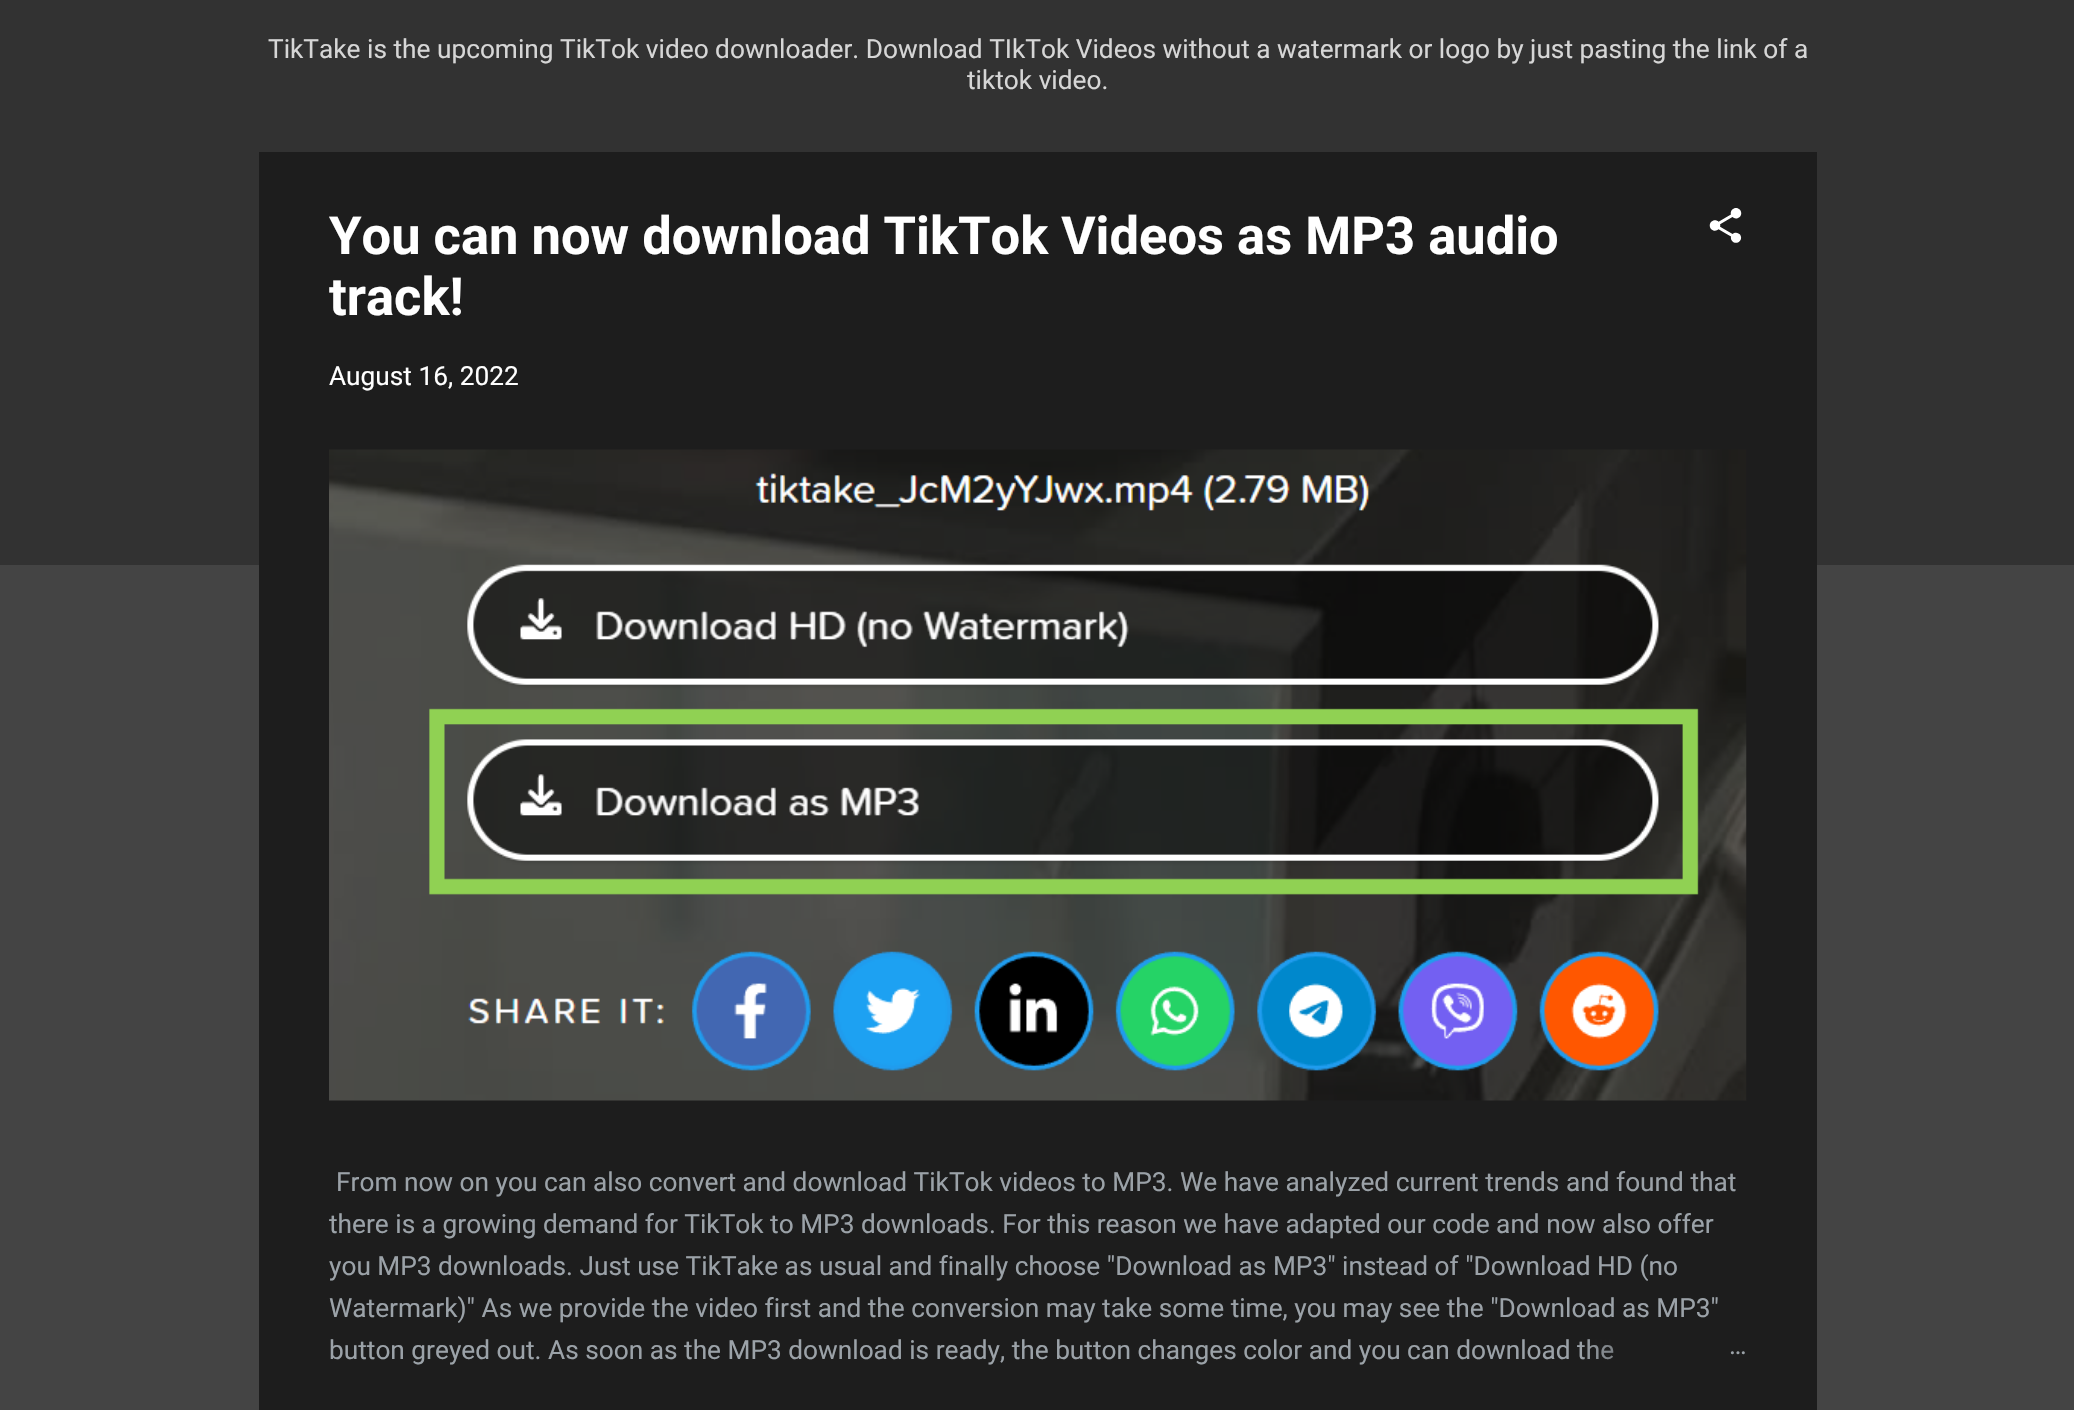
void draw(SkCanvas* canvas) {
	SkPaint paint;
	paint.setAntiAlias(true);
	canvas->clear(0xff444444);
	paint.setColor(0xff323232);
	canvas->drawRect(SkRect::MakeXYWH(0, 0, 2074, 565), paint);
	SkFont f1(fontMgr->matchFamilyStyle("Roboto", SkFontStyle::Normal()), 26.25);
	f1.setSubpixel(true);
	paint.setColor(0xffd6d6d6);
	canvas->drawString("TikTake is the upcoming TikTok video downloader. Download TIkTok Videos without a watermark or logo by just pasting the link of a", 268, 58, f1, paint);
	canvas->drawString("tiktok video.", 967, 89, f1, paint);
	paint.setColor(0xff1d1d1d);
	canvas->drawRect(SkRect::MakeXYWH(259, 152, 1558, 1258), paint);
	SkFont f2(fontMgr->matchFamilyStyle("Roboto", SkFontStyle::Bold()), 52.5);
	f2.setSubpixel(true);
	paint.setColor(0xffffffff);
	canvas->drawString("You can now download TikTok Videos as MP3 audio", 329, 254, f2, paint);
	canvas->drawString("track!", 329, 315, f2, paint);
	canvas->drawImageRect(SkImages::DeferredFromEncodedData(SkData::MakeFromFileName("img1.png")), SkRect::MakeXYWH(1709, 208, 33, 35), SkSamplingOptions());
	canvas->drawString("August 16, 2022", 329, 385, f1, paint);
	canvas->drawImageRect(SkImages::DeferredFromEncodedData(SkData::MakeFromFileName("img2.png")), SkRect::MakeXYWH(329, 449, 1418, 652), SkSamplingOptions());
	paint.setColor(0xff9ba2a8);
	canvas->drawString("From now on you can also convert and download TikTok videos to MP3. We have analyzed current trends and found that", 336, 1191, f1, paint);
	canvas->drawString("there is a growing demand for TikTok to MP3 downloads. For this reason we have adapted our code and now also offer", 329, 1233, f1, paint);
	canvas->drawString("you MP3 downloads. Just use TikTake as usual and finally choose \"Download as MP3\" instead of \"Download HD (no", 329, 1275, f1, paint);
	canvas->drawString("Watermark)\" As we provide the video first and the conversion may take some time, you may see the \"Download as MP3\"", 329, 1317, f1, paint);
	canvas->drawString("button greyed out. As soon as the MP3 download is ready, the button changes color and you can download the", 329, 1359, f1, paint);
	{
		const SkColor colors[] = {0xff1d1d1d, 0xff1d1d1d, 0x001d1d1d};
		const float stops[] = {0, 0.2, 1};
		const SkPoint ends[] = {{1747, 1349}, {1579, 1349}};
		paint.setShader(SkGradientShader::MakeLinear(ends, colors, stops, 3, SkTileMode::kClamp));
		paint.setAlpha(255);
	}
	canvas->drawRect(SkRect::MakeXYWH(1582, 1339, 32, 21), paint);
	paint.setShader(nullptr);
	paint.setColor(0xff9ba2a8);
	canvas->drawString("…", 1729, 1354, f1, paint);
}
